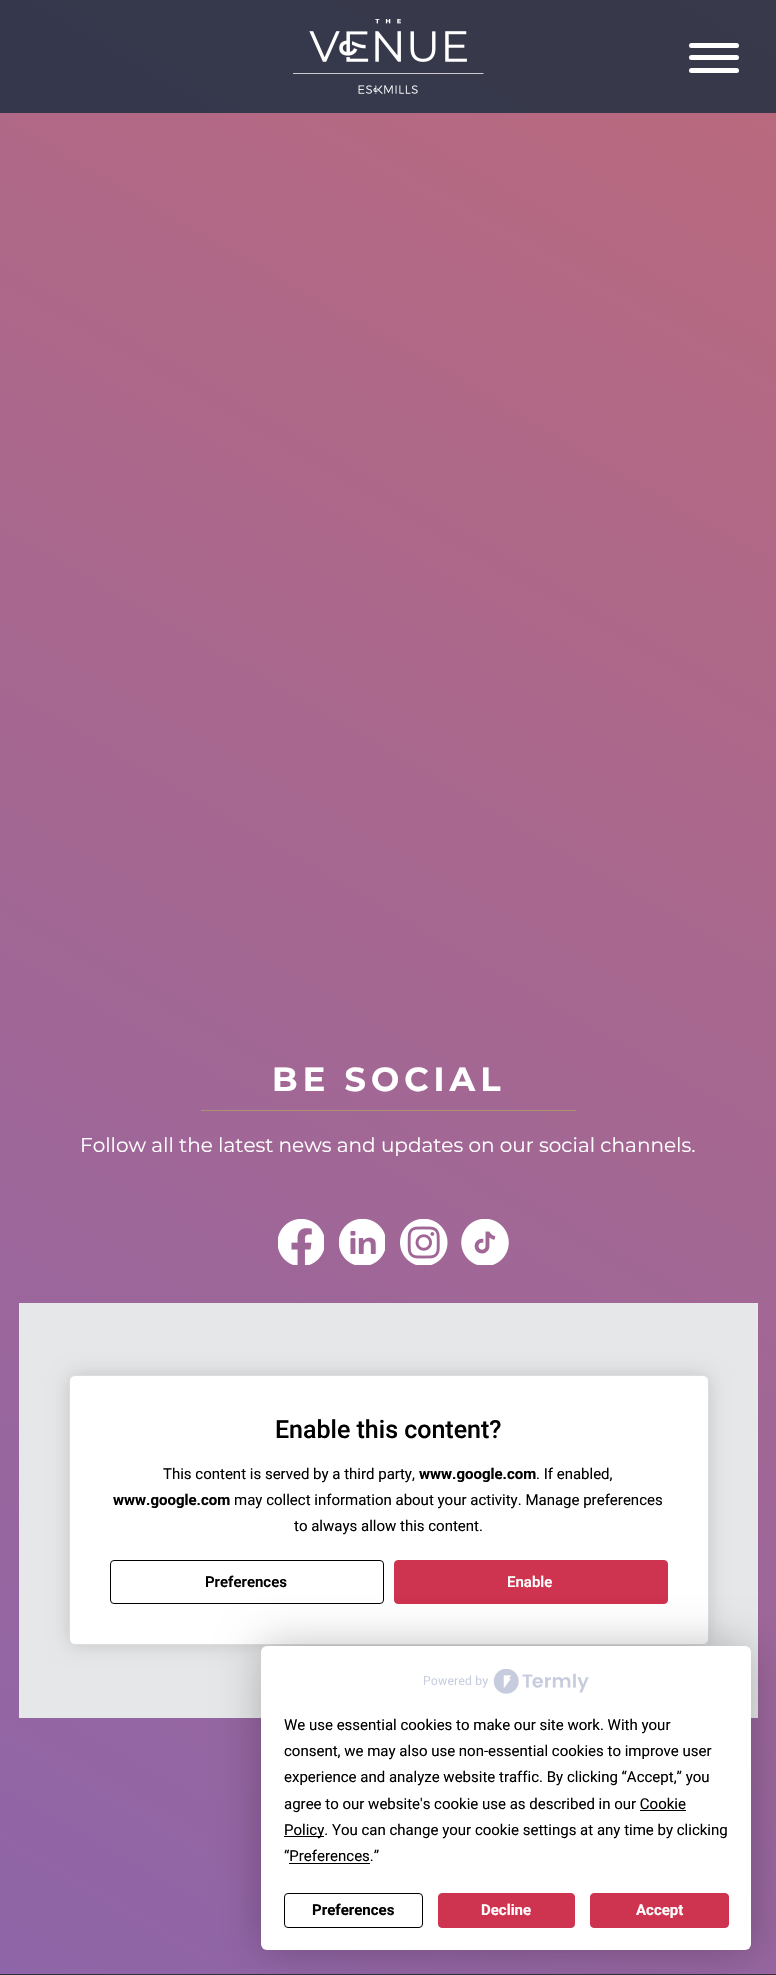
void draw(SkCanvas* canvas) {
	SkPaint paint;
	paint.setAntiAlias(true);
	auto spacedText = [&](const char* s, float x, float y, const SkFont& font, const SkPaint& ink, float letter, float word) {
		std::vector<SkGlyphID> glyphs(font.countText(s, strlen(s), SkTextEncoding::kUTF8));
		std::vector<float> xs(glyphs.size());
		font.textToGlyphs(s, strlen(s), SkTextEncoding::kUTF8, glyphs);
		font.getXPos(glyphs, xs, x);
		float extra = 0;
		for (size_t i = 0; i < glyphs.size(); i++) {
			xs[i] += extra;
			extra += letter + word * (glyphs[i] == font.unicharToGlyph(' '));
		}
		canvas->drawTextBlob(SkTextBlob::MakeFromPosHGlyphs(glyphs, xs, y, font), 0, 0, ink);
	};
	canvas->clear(0xff1c1c1c);
	canvas->drawImageRect(SkImages::DeferredFromEncodedData(SkData::MakeFromFileName("img2.png")), SkRect::MakeXYWH(0, 0, 776, 1975), SkSamplingOptions());
	paint.setColor(0xb3002433);
	canvas->drawRect(SkRect::MakeXYWH(0, 0, 776, 113), paint);
	canvas->drawImageRect(SkImages::DeferredFromEncodedData(SkData::MakeFromFileName("img1.png")), SkRect::MakeXYWH(293, 19, 191, 75), SkSamplingOptions());
	paint.setColor(0xffffffff);
	canvas->drawRoundRect(SkRect::MakeXYWH(689, 43, 50, 5), 2.5, 2.5, paint);
	canvas->drawRoundRect(SkRect::MakeXYWH(689, 55, 50, 5), 2.5, 2.5, paint);
	canvas->drawRoundRect(SkRect::MakeXYWH(689, 68, 50, 5), 2.5, 2.5, paint);
	SkFont f1(fontMgr->matchFamilyStyle("Montserrat", SkFontStyle::Bold()), 33.5);
	f1.setSubpixel(true);
	spacedText("BE SOCIAL", 272, 1091, f1, paint, 5, 0);
	paint.setColor(0xffac926d);
	canvas->drawRect(SkRect::MakeXYWH(201, 1110, 375, 1), paint);
	SkFont f2(fontMgr->matchFamilyStyle("Montserrat", SkFontStyle::Normal()), 20);
	f2.setSubpixel(true);
	paint.setColor(0xffffffff);
	canvas->drawString("Follow all the latest news and updates on our social channels.", 80, 1152, f2, paint);
	canvas->drawImageRect(SkImages::DeferredFromEncodedData(SkData::MakeFromFileName("img3.png")), SkRect::MakeXYWH(278, 1219, 46, 46), SkSamplingOptions());
	canvas->drawImageRect(SkImages::DeferredFromEncodedData(SkData::MakeFromFileName("img4.png")), SkRect::MakeXYWH(339, 1219, 46, 46), SkSamplingOptions());
	canvas->drawImageRect(SkImages::DeferredFromEncodedData(SkData::MakeFromFileName("img5.png")), SkRect::MakeXYWH(400, 1219, 48, 46), SkSamplingOptions());
	canvas->drawImageRect(SkImages::DeferredFromEncodedData(SkData::MakeFromFileName("img6.png")), SkRect::MakeXYWH(461, 1219, 48, 46), SkSamplingOptions());
	paint.setColor(0xffe6e7e8);
	canvas->drawRect(SkRect::MakeXYWH(19, 1303, 739, 415), paint);
	paint.setColor(0x26000000);
	paint.setMaskFilter(SkMaskFilter::MakeBlur(kNormal_SkBlurStyle, 9.5));
	canvas->drawRoundRect(SkRect::MakeXYWH(69, 1375, 640, 270), 6, 6, paint);
	paint.setMaskFilter(nullptr);
	paint.setColor(0xffffffff);
	canvas->drawRoundRect(SkRect::MakeXYWH(69.5, 1375.5, 639, 269), 5.5, 5.5, paint);
	paint.setStroke(true);
	paint.setStrokeWidth(1);
	paint.setColor(0xffdddddd);
	canvas->drawRoundRect(SkRect::MakeXYWH(69.5, 1375.5, 639, 269), 5.5, 5.5, paint);
	SkFont f3(fontMgr->matchFamilyStyle("Roboto", SkFontStyle(500, SkFontStyle::kNormal_Width, SkFontStyle::kUpright_Slant)), 25);
	f3.setSubpixel(true);
	paint.setStroke(false);
	paint.setColor(0xff000000);
	canvas->drawString("Enable this content?", 275, 1438, f3, paint);
	SkFont f4(fontMgr->matchFamilyStyle("Roboto", SkFontStyle::Normal()), 15);
	f4.setSubpixel(true);
	canvas->drawString("This content is served by a third party,", 163, 1479, f4, paint);
	SkFont f5(fontMgr->matchFamilyStyle("Roboto", SkFontStyle::Bold()), 15);
	f5.setSubpixel(true);
	canvas->drawString("www.google.com", 419, 1479, f5, paint);
	canvas->drawString(". If enabled,", 536, 1479, f4, paint);
	canvas->drawString("www.google.com", 113, 1505, f5, paint);
	canvas->drawString("may collect information about your activity. Manage preferences", 234, 1505, f4, paint);
	canvas->drawString("to always allow this content.", 294, 1531, f4, paint);
	paint.setStroke(true);
	canvas->drawRoundRect(SkRect::MakeXYWH(110.5, 1560.5, 273, 43), 3.5, 3.5, paint);
	SkFont f6(fontMgr->matchFamilyStyle("Roboto", SkFontStyle(600, SkFontStyle::kNormal_Width, SkFontStyle::kUpright_Slant)), 15);
	f6.setSubpixel(true);
	paint.setStroke(false);
	canvas->drawString("Preferences", 205, 1587, f6, paint);
	paint.setColor(0xffce334f);
	canvas->drawRoundRect(SkRect::MakeXYWH(394.5, 1560.5, 273, 43), 3.5, 3.5, paint);
	paint.setStroke(true);
	canvas->drawRoundRect(SkRect::MakeXYWH(394.5, 1560.5, 273, 43), 3.5, 3.5, paint);
	paint.setStroke(false);
	paint.setColor(0xffffffff);
	canvas->drawString("Enable", 507, 1587, f6, paint);
	paint.setColor(0x40000000);
	paint.setMaskFilter(SkMaskFilter::MakeBlur(kNormal_SkBlurStyle, 22));
	canvas->drawRoundRect(SkRect::MakeXYWH(261, 1646, 490, 304), 6, 6, paint);
	paint.setMaskFilter(nullptr);
	paint.setColor(0xffffffff);
	canvas->drawRoundRect(SkRect::MakeXYWH(261, 1646, 490, 304), 6, 6, paint);
	canvas->drawImageRect(SkImages::DeferredFromEncodedData(SkData::MakeFromFileName("img7.png")), SkRect::MakeXYWH(424, 1669, 165, 25), SkSamplingOptions());
	paint.setColor(0xff000000);
	canvas->drawString("We use essential cookies to make our site work. With your", 284, 1730, f4, paint);
	canvas->drawString("consent, we may also use non-essential cookies to improve user", 284, 1756, f4, paint);
	canvas->drawString("experience and analyze website traffic. By clicking “Accept,” you", 284, 1782, f4, paint);
	canvas->drawString("agree to our website's cookie use as described in our Cookie", 284, 1809, f4, paint);
	canvas->drawRect(SkRect::MakeXYWH(284, 1836, 40, 1), paint);
	canvas->drawString("Policy. You can change your cookie settings at any time by clicking", 284, 1835, f4, paint);
	canvas->drawRect(SkRect::MakeXYWH(640, 1810, 46, 1), paint);
	canvas->drawString("“Preferences.”", 284, 1861, f4, paint);
	canvas->drawRect(SkRect::MakeXYWH(289, 1863, 81, 1), paint);
	paint.setStroke(true);
	canvas->drawRoundRect(SkRect::MakeXYWH(284.5, 1893.5, 138, 34), 3.5, 3.5, paint);
	paint.setStroke(false);
	canvas->drawString("Preferences", 312, 1915, f5, paint);
	paint.setColor(0xffce334f);
	canvas->drawRoundRect(SkRect::MakeXYWH(438.5, 1893.5, 136, 34), 3.5, 3.5, paint);
	paint.setStroke(true);
	canvas->drawRoundRect(SkRect::MakeXYWH(438.5, 1893.5, 136, 34), 3.5, 3.5, paint);
	paint.setStroke(false);
	paint.setColor(0xffffffff);
	canvas->drawString("Decline", 481, 1915, f5, paint);
	paint.setColor(0xffce334f);
	canvas->drawRoundRect(SkRect::MakeXYWH(590.5, 1893.5, 138, 34), 3.5, 3.5, paint);
	paint.setStroke(true);
	canvas->drawRoundRect(SkRect::MakeXYWH(590.5, 1893.5, 138, 34), 3.5, 3.5, paint);
	paint.setStroke(false);
	paint.setColor(0xffffffff);
	canvas->drawString("Accept", 636, 1915, f5, paint);
}
